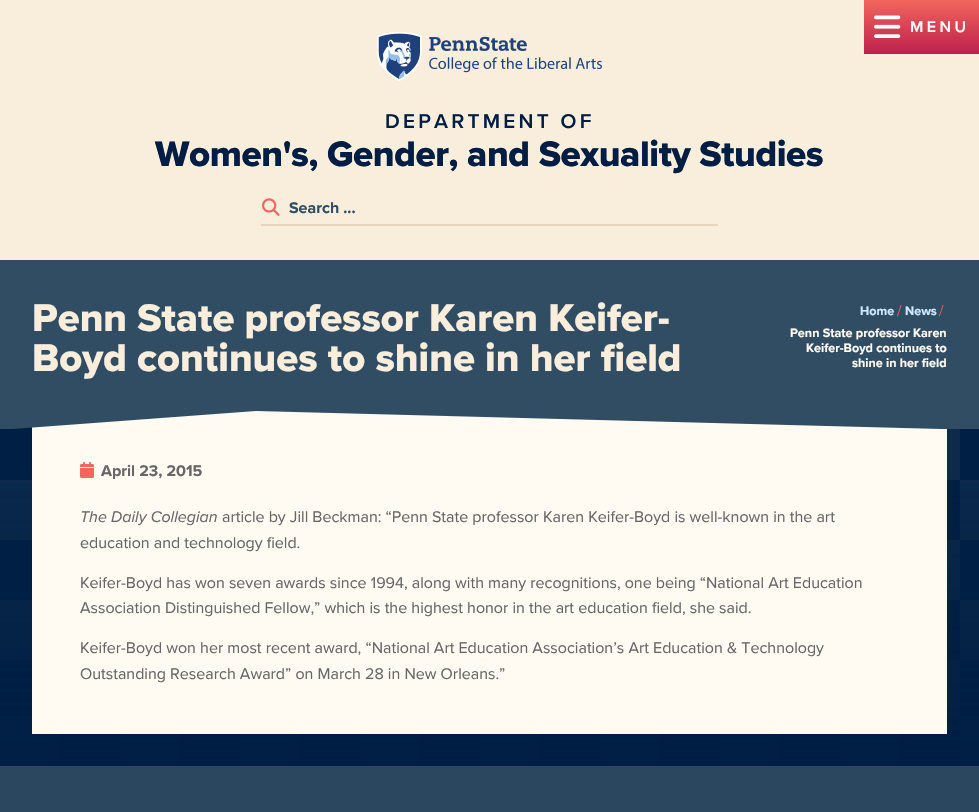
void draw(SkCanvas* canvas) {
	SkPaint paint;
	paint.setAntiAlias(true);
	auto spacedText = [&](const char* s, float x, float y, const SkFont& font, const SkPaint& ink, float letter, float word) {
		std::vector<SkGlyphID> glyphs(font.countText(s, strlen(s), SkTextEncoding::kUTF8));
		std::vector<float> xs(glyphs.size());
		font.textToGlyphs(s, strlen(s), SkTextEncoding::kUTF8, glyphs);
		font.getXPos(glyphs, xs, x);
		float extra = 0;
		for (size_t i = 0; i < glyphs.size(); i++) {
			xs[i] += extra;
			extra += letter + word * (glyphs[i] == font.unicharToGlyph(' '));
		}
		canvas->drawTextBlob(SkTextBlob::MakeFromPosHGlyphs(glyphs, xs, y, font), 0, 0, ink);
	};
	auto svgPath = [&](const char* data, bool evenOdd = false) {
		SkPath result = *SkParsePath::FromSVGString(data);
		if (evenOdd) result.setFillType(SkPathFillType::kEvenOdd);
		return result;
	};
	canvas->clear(0xff001e44);
	canvas->drawImageRect(SkImages::DeferredFromEncodedData(SkData::MakeFromFileName("img1.png")), SkRect::MakeXYWH(0, 427, 979, 337), SkSamplingOptions());
	paint.setColor(0xfff9eddc);
	canvas->drawRect(SkRect::MakeXYWH(0, 0, 979, 260), paint);
	{
		const SkColor colors[] = {0xfff2665e, 0xffbc204b};
		const float stops[] = {0, 1};
		const SkPoint ends[] = {{922, 0}, {922, 54}};
		paint.setShader(SkGradientShader::MakeLinear(ends, colors, stops, 2, SkTileMode::kClamp));
		paint.setAlpha(255);
	}
	canvas->drawRect(SkRect::MakeXYWH(864, 0, 115, 54), paint);
	canvas->drawImageRect(SkImages::DeferredFromEncodedData(SkData::MakeFromFileName("img2.png")), SkRect::MakeXYWH(874, 15, 27, 23), SkSamplingOptions());
	SkFont f1(fontMgr->matchFamilyStyle("Proxima Nova", SkFontStyle(600, SkFontStyle::kNormal_Width, SkFontStyle::kUpright_Slant)), 16);
	f1.setSubpixel(true);
	paint.setShader(nullptr);
	paint.setColor(0xffffffff);
	spacedText("MENU", 910, 32, f1, paint, 3.5, 0);
	canvas->drawImageRect(SkImages::DeferredFromEncodedData(SkData::MakeFromFileName("img3.png")), SkRect::MakeXYWH(377, 32, 225, 49), SkSamplingOptions());
	SkFont f2(fontMgr->matchFamilyStyle("Proxima Nova", SkFontStyle(600, SkFontStyle::kNormal_Width, SkFontStyle::kUpright_Slant)), 20.75);
	f2.setSubpixel(true);
	paint.setColor(0xff001e44);
	spacedText("DEPARTMENT OF", 385, 128, f2, paint, 3.25, 0);
	SkFont f3(fontMgr->matchFamilyStyle("Proxima Nova", SkFontStyle(800, SkFontStyle::kNormal_Width, SkFontStyle::kUpright_Slant)), 36.75);
	f3.setSubpixel(true);
	spacedText("Women's, Gender, and Sexuality Studies", 155, 166, f3, paint, -0.4, 0);
	paint.setColor(0xffe9d5bf);
	canvas->drawRect(SkRect::MakeXYWH(261, 224, 457, 2), paint);
	canvas->drawImageRect(SkImages::DeferredFromEncodedData(SkData::MakeFromFileName("img4.png")), SkRect::MakeXYWH(262, 198, 18, 18), SkSamplingOptions());
	SkFont f4(fontMgr->matchFamilyStyle("Proxima Nova", SkFontStyle::Bold()), 16);
	f4.setSubpixel(true);
	paint.setColor(0xff314d64);
	canvas->drawString("Search ...", 289, 213, f4, paint);
	canvas->drawRect(SkRect::MakeXYWH(0, 260, 979, 150), paint);
	SkFont f5(fontMgr->matchFamilyStyle("Proxima Nova", SkFontStyle(800, SkFontStyle::kNormal_Width, SkFontStyle::kUpright_Slant)), 40);
	f5.setSubpixel(true);
	paint.setColor(0xfff9eddc);
	canvas->drawString("Penn State professor Karen Keifer-", 32, 331, f5, paint);
	canvas->drawString("Boyd continues to shine in her field", 32, 371, f5, paint);
	SkFont f6(fontMgr->matchFamilyStyle("Proxima Nova", SkFontStyle::Bold()), 12.6);
	f6.setSubpixel(true);
	paint.setColor(0xffcce9ff);
	canvas->drawString("Home", 860, 315, f6, paint);
	SkFont f7(fontMgr->matchFamilyStyle("Proxima Nova", SkFontStyle(300, SkFontStyle::kNormal_Width, SkFontStyle::kUpright_Slant)), 16);
	f7.setSubpixel(true);
	paint.setColor(0xfff2665e);
	canvas->drawString("/", 897, 316, f7, paint);
	paint.setColor(0xffcce9ff);
	canvas->drawString("News", 905, 315, f6, paint);
	paint.setColor(0xfff2665e);
	canvas->drawString("/", 939, 316, f7, paint);
	paint.setColor(0xfffffaf2);
	canvas->drawString("Penn State professor Karen", 790, 337, f6, paint);
	canvas->drawString("Keifer-Boyd continues to", 806, 352, f6, paint);
	canvas->drawString("shine in her field", 852, 367, f6, paint);
	{
		const SkColor colors[] = {0x00001e44, 0xff001e44};
		const float stops[] = {0, 1};
		const SkPoint ends[] = {{490, 410}, {490, 766}};
		paint.setShader(SkGradientShader::MakeLinear(ends, colors, stops, 2, SkTileMode::kClamp));
		paint.setAlpha(255);
	}
	canvas->drawRect(SkRect::MakeXYWH(0, 483, 979, 281), paint);
	paint.setShader(nullptr);
	paint.setColor(0xfffffaf2);
	canvas->drawRect(SkRect::MakeXYWH(32, 411, 915, 323), paint);
	canvas->save();
	canvas->clipRect(SkRect::MakeXYWH(0, 409, 979, 20));
	paint.setColor(0xff314d64);
	canvas->drawPath(svgPath("M256 411L979 430V410H-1V430Z"), paint);
	canvas->restore();
	canvas->drawImageRect(SkImages::DeferredFromEncodedData(SkData::MakeFromFileName("img5.png")), SkRect::MakeXYWH(80, 462, 14, 16), SkSamplingOptions());
	paint.setColor(0xff666666);
	canvas->drawString("April 23, 2015", 101, 476, f4, paint);
	SkFont f8(fontMgr->matchFamilyStyle("Proxima Nova", SkFontStyle::Italic()), 16);
	f8.setSubpixel(true);
	canvas->drawString("The Daily Collegian", 80, 522, f8, paint);
	SkFont f9(fontMgr->matchFamilyStyle("Proxima Nova", SkFontStyle::Normal()), 16);
	f9.setSubpixel(true);
	canvas->drawString("article by Jill Beckman: “Penn State professor Karen Keifer-Boyd is well-known in the art", 222, 522, f9, paint);
	canvas->drawString("education and technology field.", 80, 548, f9, paint);
	canvas->drawString("Keifer-Boyd has won seven awards since 1994, along with many recognitions, one being “National Art Education", 80, 588, f9, paint);
	canvas->drawString("Association Distinguished Fellow,” which is the highest honor in the art education field, she said.", 80, 613, f9, paint);
	canvas->drawString("Keifer-Boyd won her most recent award, “National Art Education Association’s Art Education & Technology", 80, 653, f9, paint);
	canvas->drawString("Outstanding Research Award” on March 28 in New Orleans.”", 80, 679, f9, paint);
	paint.setColor(0xff2b4760);
	canvas->drawRect(SkRect::MakeXYWH(0, 766, 979, 46), paint);
}
